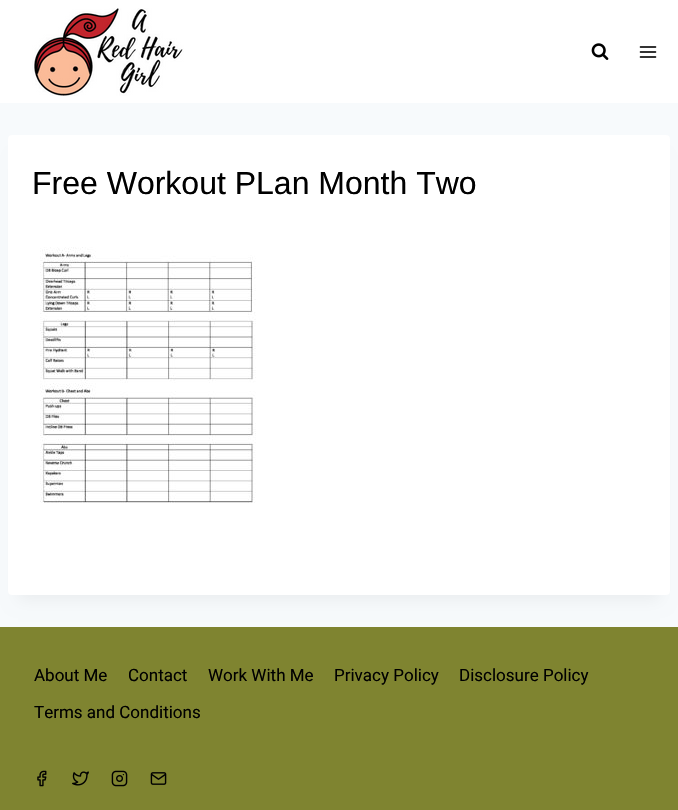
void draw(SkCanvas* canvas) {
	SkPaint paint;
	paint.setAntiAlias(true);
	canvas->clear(0xfff7fafc);
	paint.setColor(0xffffffff);
	canvas->drawRect(SkRect::MakeXYWH(0, 0, 678, 103), paint);
	canvas->drawImageRect(SkImages::DeferredFromEncodedData(SkData::MakeFromFileName("img1.png")), SkRect::MakeXYWH(32, 8, 152, 88), SkSamplingOptions());
	canvas->drawImageRect(SkImages::DeferredFromEncodedData(SkData::MakeFromFileName("img2.png")), SkRect::MakeXYWH(591, 43, 18, 17), SkSamplingOptions());
	canvas->drawImageRect(SkImages::DeferredFromEncodedData(SkData::MakeFromFileName("img3.png")), SkRect::MakeXYWH(639, 46, 18, 12), SkSamplingOptions());
	paint.setColor(0x0d000000);
	paint.setMaskFilter(SkMaskFilter::MakeBlur(kNormal_SkBlurStyle, 7.5));
	canvas->drawRect(SkRect::MakeXYWH(18, 160, 642, 440), paint);
	paint.setMaskFilter(nullptr);
	paint.setColor(0xffffffff);
	canvas->drawRoundRect(SkRect::MakeXYWH(8, 135, 662, 460), 4, 4, paint);
	SkFont f1(fontMgr->matchFamilyStyle("Liberation Sans", SkFontStyle::Normal()), 32);
	f1.setSubpixel(true);
	paint.setColor(0xff000000);
	canvas->drawString("Free Workout PLan Month Two", 32, 194, f1, paint);
	canvas->drawImageRect(SkImages::DeferredFromEncodedData(SkData::MakeFromFileName("img4.png")), SkRect::MakeXYWH(40, 247, 216, 256), SkSamplingOptions());
	paint.setColor(0xff7f8430);
	canvas->drawRect(SkRect::MakeXYWH(0, 627, 678, 183), paint);
	SkFont f2(fontMgr->matchFamilyStyle("Roboto", SkFontStyle::Normal()), 17);
	f2.setSubpixel(true);
	paint.setColor(0xff000000);
	canvas->drawString("About Me", 34, 681, f2, paint);
	canvas->drawString("Contact", 128, 681, f2, paint);
	canvas->drawString("Work With Me", 208, 681, f2, paint);
	canvas->drawString("Privacy Policy", 334, 681, f2, paint);
	canvas->drawString("Disclosure Policy", 459, 681, f2, paint);
	canvas->drawString("Terms and Conditions", 34, 718, f2, paint);
	canvas->drawImageRect(SkImages::DeferredFromEncodedData(SkData::MakeFromFileName("img5.png")), SkRect::MakeXYWH(37, 770, 10, 17), SkSamplingOptions());
	canvas->drawImageRect(SkImages::DeferredFromEncodedData(SkData::MakeFromFileName("img6.png")), SkRect::MakeXYWH(72, 771, 17, 15), SkSamplingOptions());
	canvas->drawImageRect(SkImages::DeferredFromEncodedData(SkData::MakeFromFileName("img7.png")), SkRect::MakeXYWH(111, 770, 17, 17), SkSamplingOptions());
	canvas->drawImageRect(SkImages::DeferredFromEncodedData(SkData::MakeFromFileName("img8.png")), SkRect::MakeXYWH(150, 772, 17, 13), SkSamplingOptions());
}
